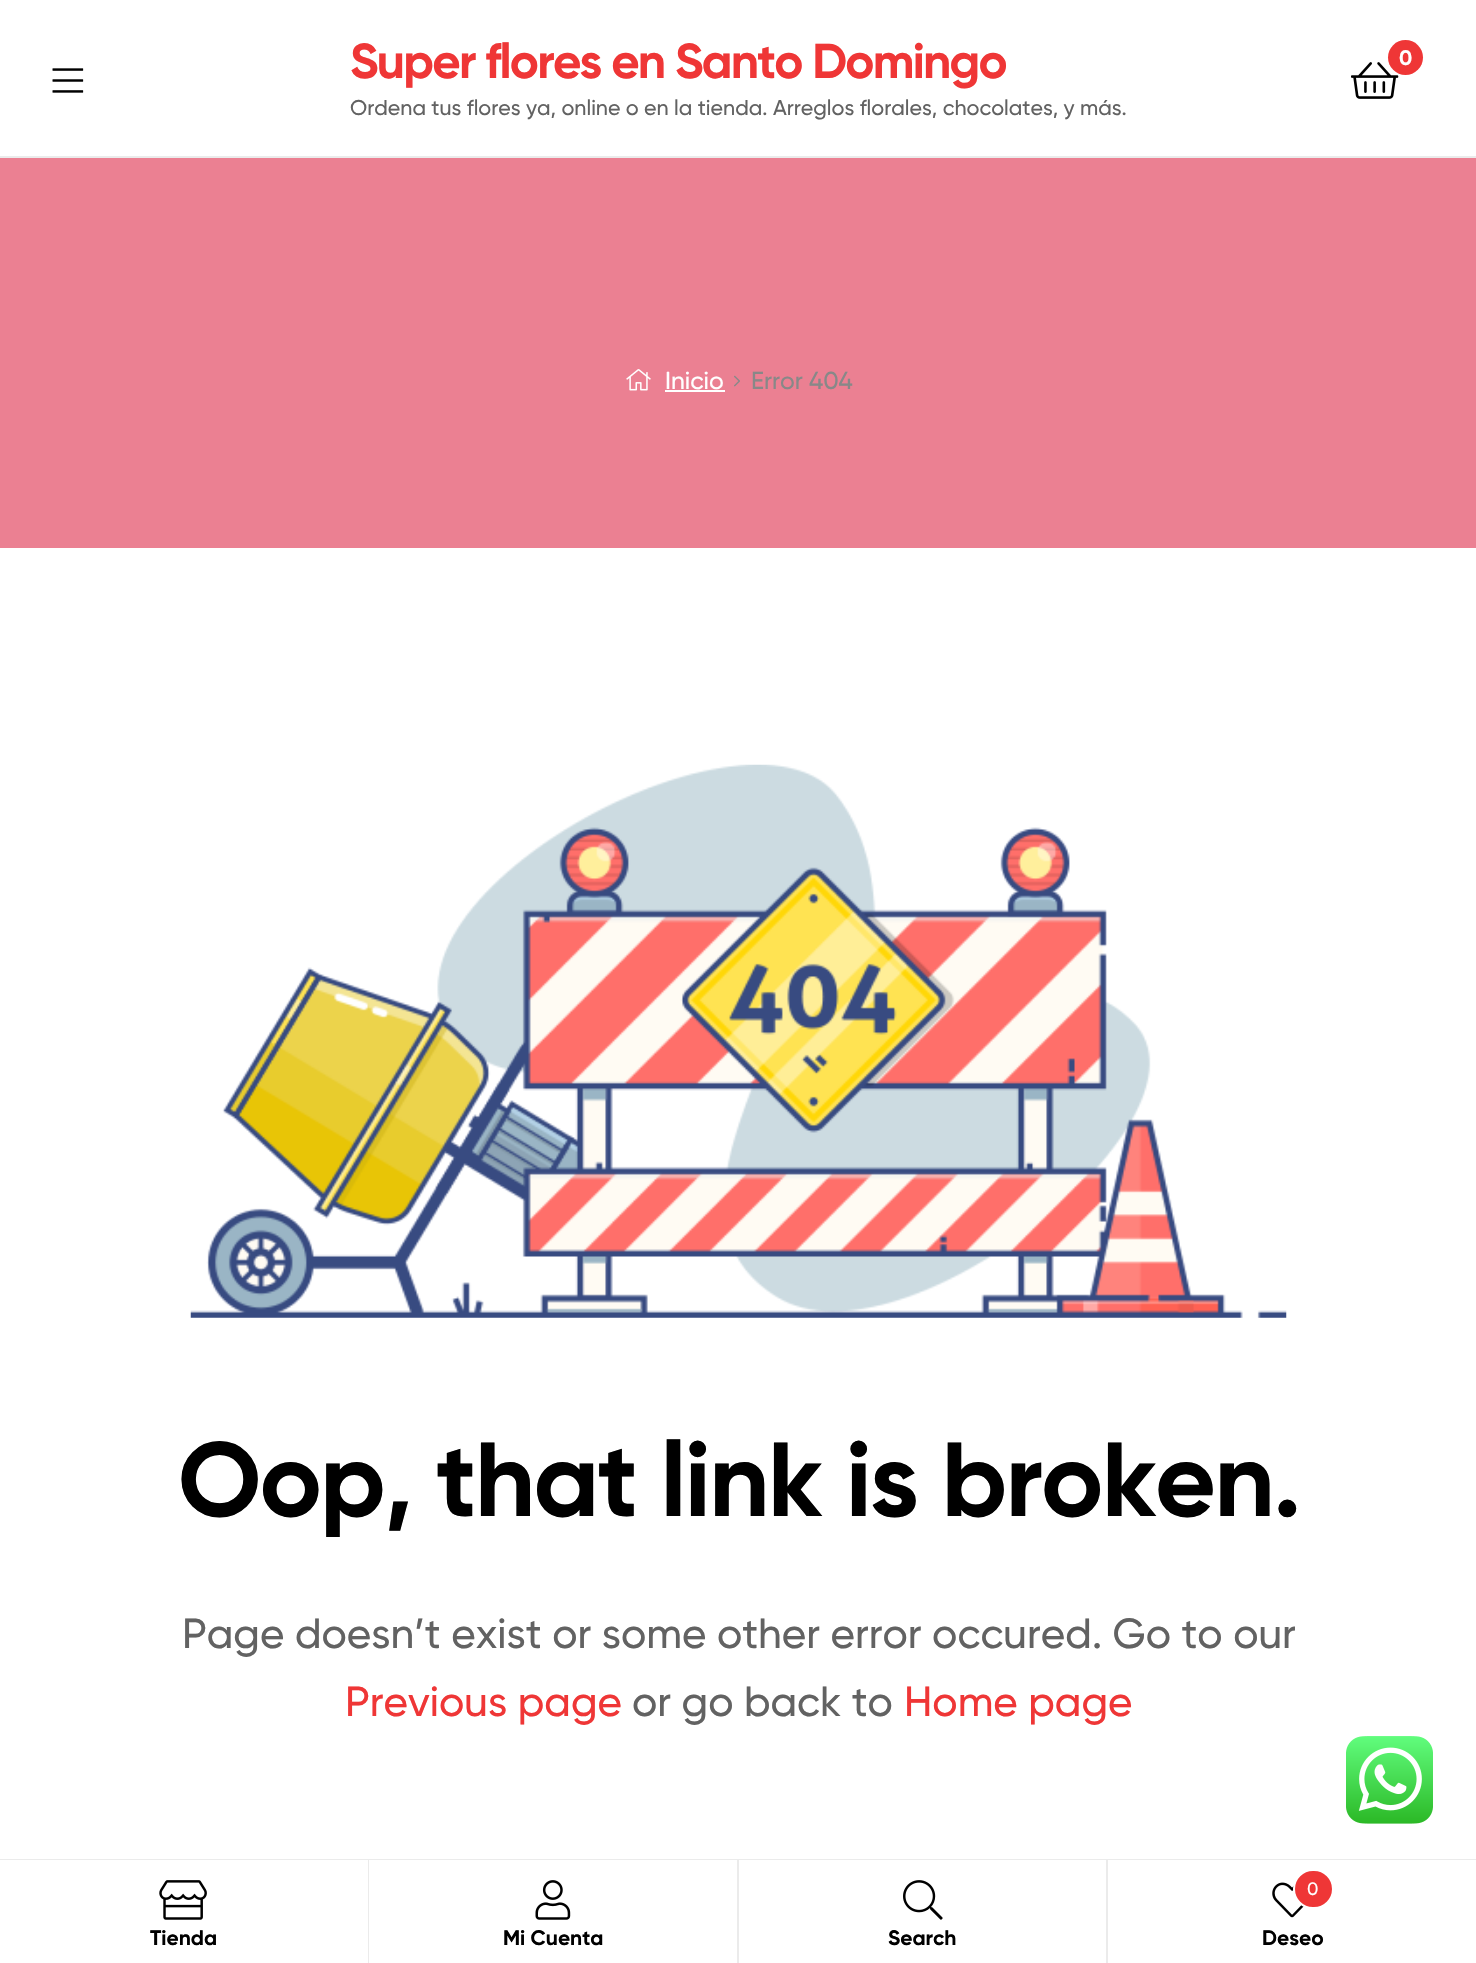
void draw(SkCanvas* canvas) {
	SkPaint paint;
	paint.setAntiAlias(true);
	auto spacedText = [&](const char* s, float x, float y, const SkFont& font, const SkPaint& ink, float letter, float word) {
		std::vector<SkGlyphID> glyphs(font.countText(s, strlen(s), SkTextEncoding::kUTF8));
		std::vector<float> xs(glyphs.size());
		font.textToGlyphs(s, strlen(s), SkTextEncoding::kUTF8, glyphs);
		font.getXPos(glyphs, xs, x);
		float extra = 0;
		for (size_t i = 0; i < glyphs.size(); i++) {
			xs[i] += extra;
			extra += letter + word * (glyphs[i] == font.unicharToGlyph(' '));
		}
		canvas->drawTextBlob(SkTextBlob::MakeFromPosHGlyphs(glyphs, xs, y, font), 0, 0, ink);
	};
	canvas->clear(0xffffffff);
	paint.setColor(0xffebebeb);
	canvas->drawRect(SkRect::MakeXYWH(0, 156, 1476, 2), paint);
	SkFont f1(fontMgr->matchFamilyStyle("Gilroy", SkFontStyle::Bold()), 49);
	f1.setSubpixel(true);
	paint.setColor(0xffef3636);
	spacedText("Super flores en Santo Domingo", 350, 78, f1, paint, -1.75, 0);
	SkFont f2(fontMgr->matchFamilyStyle("Gilroy", SkFontStyle(500, SkFontStyle::kNormal_Width, SkFontStyle::kUpright_Slant)), 21.45);
	f2.setSubpixel(true);
	paint.setColor(0xff626262);
	canvas->drawString("Ordena tus flores ya, online o en la tienda. Arreglos florales, chocolates, y más.", 350, 115, f2, paint);
	canvas->drawImageRect(SkImages::DeferredFromEncodedData(SkData::MakeFromFileName("img1.png")), SkRect::MakeXYWH(1351, 62, 48, 37), SkSamplingOptions());
	paint.setColor(0xffef3636);
	canvas->drawCircle(1405.5, 57.5, 17.5, paint);
	SkFont f3(fontMgr->matchFamilyStyle("Gilroy", SkFontStyle::Bold()), 21);
	f3.setSubpixel(true);
	paint.setColor(0xffffffff);
	canvas->drawString("0", 1399, 65, f3, paint);
	canvas->drawImageRect(SkImages::DeferredFromEncodedData(SkData::MakeFromFileName("img2.png")), SkRect::MakeXYWH(52, 68, 32, 25), SkSamplingOptions());
	paint.setColor(0xffeb8092);
	canvas->drawRect(SkRect::MakeXYWH(0, 158, 1476, 390), paint);
	canvas->drawImageRect(SkImages::DeferredFromEncodedData(SkData::MakeFromFileName("img3.png")), SkRect::MakeXYWH(626, 369, 25, 22), SkSamplingOptions());
	SkFont f4(fontMgr->matchFamilyStyle("Gilroy", SkFontStyle(500, SkFontStyle::kNormal_Width, SkFontStyle::kUpright_Slant)), 24.5);
	f4.setSubpixel(true);
	paint.setColor(0xffffffff);
	canvas->drawString("Inicio", 665, 389, f4, paint);
	canvas->drawRect(SkRect::MakeXYWH(665, 390, 60, 2), paint);
	canvas->drawImageRect(SkImages::DeferredFromEncodedData(SkData::MakeFromFileName("img4.png")), SkRect::MakeXYWH(734, 375, 6, 12), SkSamplingOptions());
	paint.setColor(0xff888888);
	canvas->drawString("Error 404", 751, 389, f4, paint);
	canvas->drawImageRect(SkImages::DeferredFromEncodedData(SkData::MakeFromFileName("img5.png")), SkRect::MakeXYWH(190, 764, 1097, 554), SkSamplingOptions());
	SkFont f5(fontMgr->matchFamilyStyle("Gilroy", SkFontStyle::Bold()), 105);
	f5.setSubpixel(true);
	paint.setColor(0xff000000);
	spacedText("Oop, that link is broken.", 178, 1516, f5, paint, -1.75, 0);
	SkFont f6(fontMgr->matchFamilyStyle("Gilroy", SkFontStyle(500, SkFontStyle::kNormal_Width, SkFontStyle::kUpright_Slant)), 42);
	f6.setSubpixel(true);
	paint.setColor(0xff626262);
	canvas->drawString("Page doesn’t exist or some other error occured. Go to our", 182, 1648, f6, paint);
	paint.setColor(0xffef3636);
	canvas->drawString("Previous page", 345, 1716, f6, paint);
	paint.setColor(0xff626262);
	canvas->drawString("or go back to", 632, 1716, f6, paint);
	paint.setColor(0xffef3636);
	canvas->drawString("Home page", 904, 1716, f6, paint);
	paint.setColor(0xffebebeb);
	canvas->drawRect(SkRect::MakeXYWH(0, 1859, 1476, 1), paint);
	canvas->drawRect(SkRect::MakeXYWH(368, 1860, 1, 103), paint);
	canvas->drawImageRect(SkImages::DeferredFromEncodedData(SkData::MakeFromFileName("img6.png")), SkRect::MakeXYWH(159, 1880, 48, 40), SkSamplingOptions());
	paint.setColor(0xff000000);
	canvas->drawString("Tienda", 150, 1945, f3, paint);
	paint.setColor(0xffebebeb);
	canvas->drawRect(SkRect::MakeXYWH(737, 1860, 2, 103), paint);
	canvas->drawImageRect(SkImages::DeferredFromEncodedData(SkData::MakeFromFileName("img7.png")), SkRect::MakeXYWH(535, 1880, 36, 40), SkSamplingOptions());
	paint.setColor(0xff000000);
	canvas->drawString("Mi Cuenta", 503, 1945, f3, paint);
	paint.setColor(0xffebebeb);
	canvas->drawRect(SkRect::MakeXYWH(1106, 1860, 2, 103), paint);
	canvas->drawImageRect(SkImages::DeferredFromEncodedData(SkData::MakeFromFileName("img8.png")), SkRect::MakeXYWH(903, 1880, 40, 40), SkSamplingOptions());
	paint.setColor(0xff000000);
	canvas->drawString("Search", 888, 1945, f3, paint);
	canvas->drawImageRect(SkImages::DeferredFromEncodedData(SkData::MakeFromFileName("img9.png")), SkRect::MakeXYWH(1272, 1882, 32, 36), SkSamplingOptions());
	paint.setColor(0xffef3636);
	canvas->drawRoundRect(SkRect::MakeXYWH(1294, 1870, 39, 38), 19, 19, paint);
	paint.setStroke(true);
	paint.setStrokeWidth(2);
	paint.setColor(0xffffffff);
	canvas->drawRoundRect(SkRect::MakeXYWH(1294, 1870, 39, 38), 19, 19, paint);
	SkFont f7(fontMgr->matchFamilyStyle("Gilroy", SkFontStyle(500, SkFontStyle::kNormal_Width, SkFontStyle::kUpright_Slant)), 18);
	f7.setSubpixel(true);
	paint.setStroke(false);
	canvas->drawString("0", 1307, 1895, f7, paint);
	paint.setColor(0xff000000);
	canvas->drawString("Deseo", 1262, 1945, f3, paint);
	canvas->drawImageRect(SkImages::DeferredFromEncodedData(SkData::MakeFromFileName("img10.png")), SkRect::MakeXYWH(1346, 1736, 87, 88), SkSamplingOptions());
}
